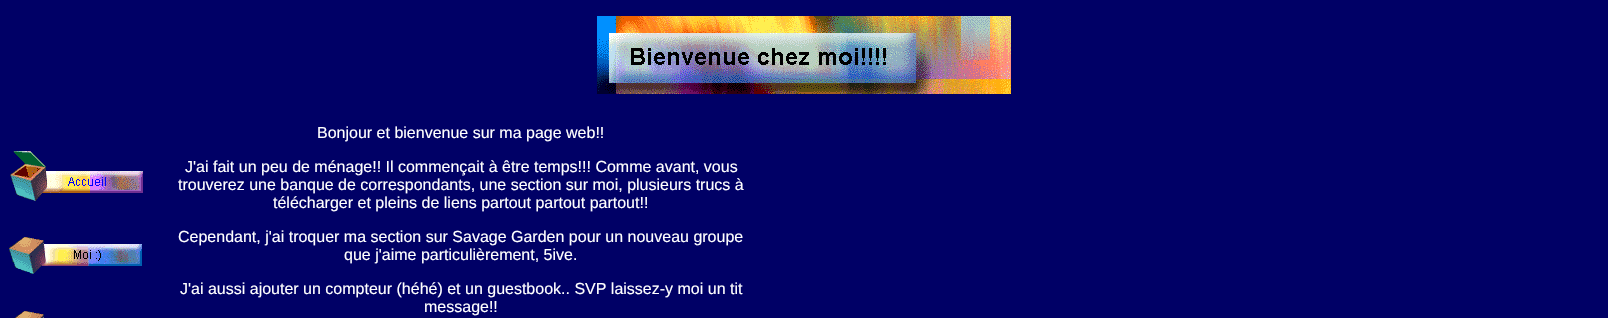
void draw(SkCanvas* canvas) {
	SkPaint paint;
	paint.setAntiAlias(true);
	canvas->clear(0xff000066);
	canvas->drawImageRect(SkImages::DeferredFromEncodedData(SkData::MakeFromFileName("img1.png")), SkRect::MakeXYWH(597, 16, 414, 78), SkSamplingOptions());
	canvas->drawImageRect(SkImages::DeferredFromEncodedData(SkData::MakeFromFileName("img2.png")), SkRect::MakeXYWH(10, 151, 133, 50), SkSamplingOptions());
	SkFont f1(fontMgr->matchFamilyStyle("Liberation Sans", SkFontStyle::Normal()), 16);
	f1.setSubpixel(true);
	paint.setColor(0xffffffff);
	canvas->drawString("Bonjour et bienvenue sur ma page web!!", 317, 138, f1, paint);
	canvas->drawString("J'ai fait un peu de ménage!! Il commençait à être temps!!! Comme avant, vous", 185, 172, f1, paint);
	canvas->drawString("trouverez une banque de correspondants, une section sur moi, plusieurs trucs à", 178, 190, f1, paint);
	canvas->drawString("télécharger et pleins de liens partout partout partout!!", 273, 208, f1, paint);
	canvas->drawString("Cependant, j'ai troquer ma section sur Savage Garden pour un nouveau groupe", 178, 242, f1, paint);
	canvas->drawString("que j'aime particulièrement, 5ive.", 344, 260, f1, paint);
	canvas->drawString("J'ai aussi ajouter un compteur (héhé) et un guestbook.. SVP laissez-y moi un tit", 180, 294, f1, paint);
	canvas->drawString("message!!", 424, 312, f1, paint);
	canvas->drawImageRect(SkImages::DeferredFromEncodedData(SkData::MakeFromFileName("img3.png")), SkRect::MakeXYWH(9, 237, 133, 37), SkSamplingOptions());
	canvas->drawImageRect(SkImages::DeferredFromEncodedData(SkData::MakeFromFileName("img4.png")), SkRect::MakeXYWH(15, 311, 29, 7), SkSamplingOptions());
}
